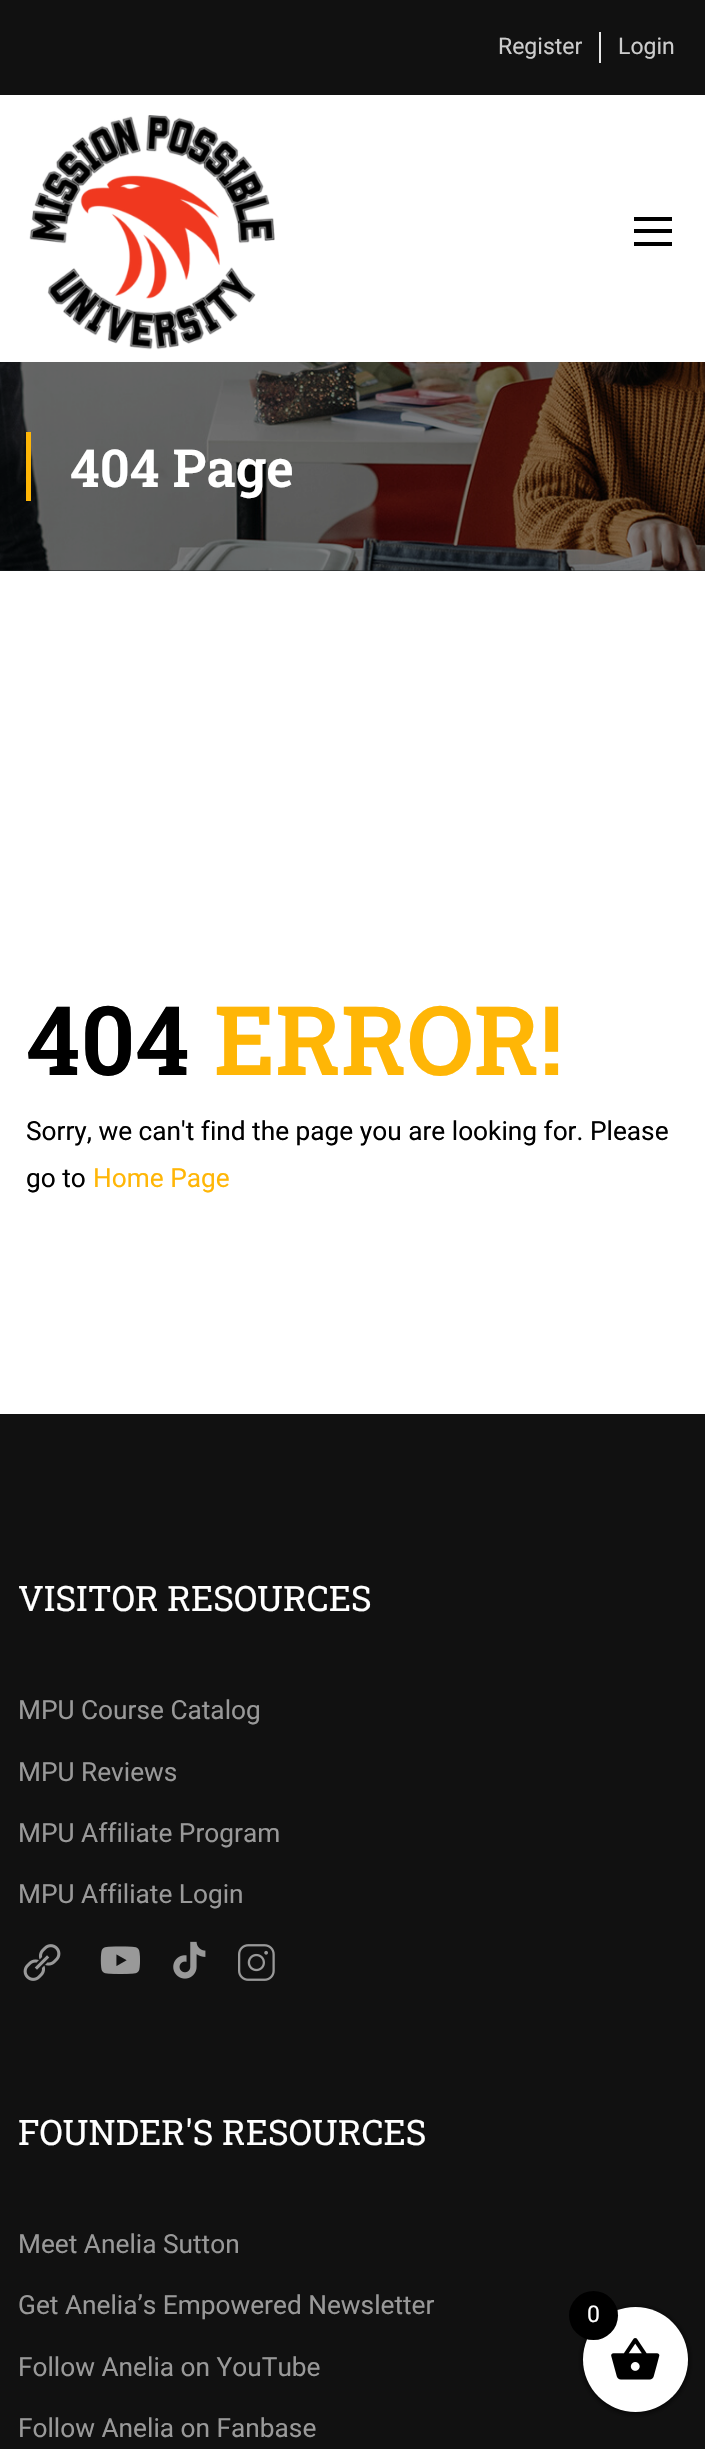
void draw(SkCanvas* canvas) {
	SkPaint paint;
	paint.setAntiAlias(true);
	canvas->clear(0xffffffff);
	paint.setColor(0xff111111);
	canvas->drawRect(SkRect::MakeXYWH(0, 0, 705, 95), paint);
	paint.setColor(0xffe7e7e7);
	canvas->drawRect(SkRect::MakeXYWH(599, 32, 2, 31), paint);
	SkFont f1(fontMgr->matchFamilyStyle("Roboto", SkFontStyle::Normal()), 23);
	f1.setSubpixel(true);
	paint.setColor(0xffcccccc);
	canvas->drawString("Register", 498, 54, f1, paint);
	canvas->drawString("Login", 618, 54, f1, paint);
	canvas->drawImageRect(SkImages::DeferredFromEncodedData(SkData::MakeFromFileName("img1.png")), SkRect::MakeXYWH(29, 115, 246, 235), SkSamplingOptions());
	paint.setColor(0xff000000);
	canvas->drawRect(SkRect::MakeXYWH(634, 217, 38, 4), paint);
	canvas->drawRect(SkRect::MakeXYWH(634, 229, 38, 4), paint);
	canvas->drawRect(SkRect::MakeXYWH(634, 242, 38, 4), paint);
	paint.setColor(0xff1c1f22);
	canvas->drawRect(SkRect::MakeXYWH(0, 570, 705, 1), paint);
	canvas->drawImageRect(SkImages::DeferredFromEncodedData(SkData::MakeFromFileName("img2.png")), SkRect::MakeXYWH(0, 362, 705, 209), SkSamplingOptions());
	paint.setColor(0xffffb606);
	canvas->drawRect(SkRect::MakeXYWH(26, 432, 5, 69), paint);
	SkFont f2(fontMgr->matchFamilyStyle("Roboto Slab", SkFontStyle(600, SkFontStyle::kNormal_Width, SkFontStyle::kUpright_Slant)), 52.5);
	f2.setSubpixel(true);
	paint.setColor(0xffffffff);
	canvas->drawString("404 Page", 70, 487, f2, paint);
	SkFont f3(fontMgr->matchFamilyStyle("Roboto Slab", SkFontStyle(600, SkFontStyle::kNormal_Width, SkFontStyle::kUpright_Slant)), 96);
	f3.setSubpixel(true);
	paint.setColor(0xff000000);
	canvas->drawString("404", 26, 1075, f3, paint);
	paint.setColor(0xffffb606);
	canvas->drawString("ERROR!", 214, 1075, f3, paint);
	SkFont f4(fontMgr->matchFamilyStyle("Roboto", SkFontStyle::Normal()), 26.25);
	f4.setSubpixel(true);
	paint.setColor(0xff000000);
	canvas->drawString("Sorry, we can't find the page you are looking for. Please", 26, 1140, f4, paint);
	canvas->drawString("go to", 26, 1187, f4, paint);
	paint.setColor(0xffffb606);
	canvas->drawString("Home Page", 93, 1187, f4, paint);
	paint.setColor(0xff111111);
	canvas->drawRect(SkRect::MakeXYWH(0, 1414, 705, 1035), paint);
	SkFont f5(fontMgr->matchFamilyStyle("Roboto Slab", SkFontStyle::Normal()), 35);
	f5.setSubpixel(true);
	paint.setColor(0xffffffff);
	canvas->drawString("VISITOR RESOURCES", 18, 1611, f5, paint);
	paint.setColor(0xff999999);
	canvas->drawString("MPU Course Catalog", 18, 1719, f4, paint);
	canvas->drawString("MPU Reviews", 18, 1781, f4, paint);
	canvas->drawString("MPU Affiliate Program", 18, 1842, f4, paint);
	canvas->drawString("MPU Affiliate Login", 18, 1903, f4, paint);
	canvas->drawImageRect(SkImages::DeferredFromEncodedData(SkData::MakeFromFileName("img3.png")), SkRect::MakeXYWH(23, 1944, 38, 37), SkSamplingOptions());
	canvas->drawImageRect(SkImages::DeferredFromEncodedData(SkData::MakeFromFileName("img4.png")), SkRect::MakeXYWH(100, 1946, 40, 28), SkSamplingOptions());
	canvas->drawImageRect(SkImages::DeferredFromEncodedData(SkData::MakeFromFileName("img5.png")), SkRect::MakeXYWH(173, 1941, 33, 38), SkSamplingOptions());
	canvas->drawImageRect(SkImages::DeferredFromEncodedData(SkData::MakeFromFileName("img6.png")), SkRect::MakeXYWH(238, 1944, 37, 37), SkSamplingOptions());
	paint.setColor(0xffffffff);
	canvas->drawString("FOUNDER'S RESOURCES", 18, 2145, f5, paint);
	paint.setColor(0xff999999);
	canvas->drawString("Meet Anelia Sutton", 18, 2253, f4, paint);
	canvas->drawString("Get Anelia’s Empowered Newsletter", 18, 2314, f4, paint);
	canvas->drawString("Follow Anelia on YouTube", 18, 2376, f4, paint);
	canvas->drawString("Follow Anelia on Fanbase", 18, 2437, f4, paint);
	paint.setColor(0xff000000);
	paint.setMaskFilter(SkMaskFilter::MakeBlur(kNormal_SkBlurStyle, 3.5));
	canvas->drawRoundRect(SkRect::MakeXYWH(583, 2308, 105, 105), 52.5, 52.5, paint);
	paint.setMaskFilter(nullptr);
	paint.setColor(0xffffffff);
	canvas->drawCircle(635.5, 2359.5, 52.5, paint);
	canvas->drawImageRect(SkImages::DeferredFromEncodedData(SkData::MakeFromFileName("img7.png")), SkRect::MakeXYWH(611, 2338, 49, 42), SkSamplingOptions());
	paint.setColor(0xff000000);
	canvas->drawCircle(593.5, 2315.5, 24.5, paint);
	paint.setColor(0xffffffff);
	canvas->drawString("0", 587, 2322, f1, paint);
}
